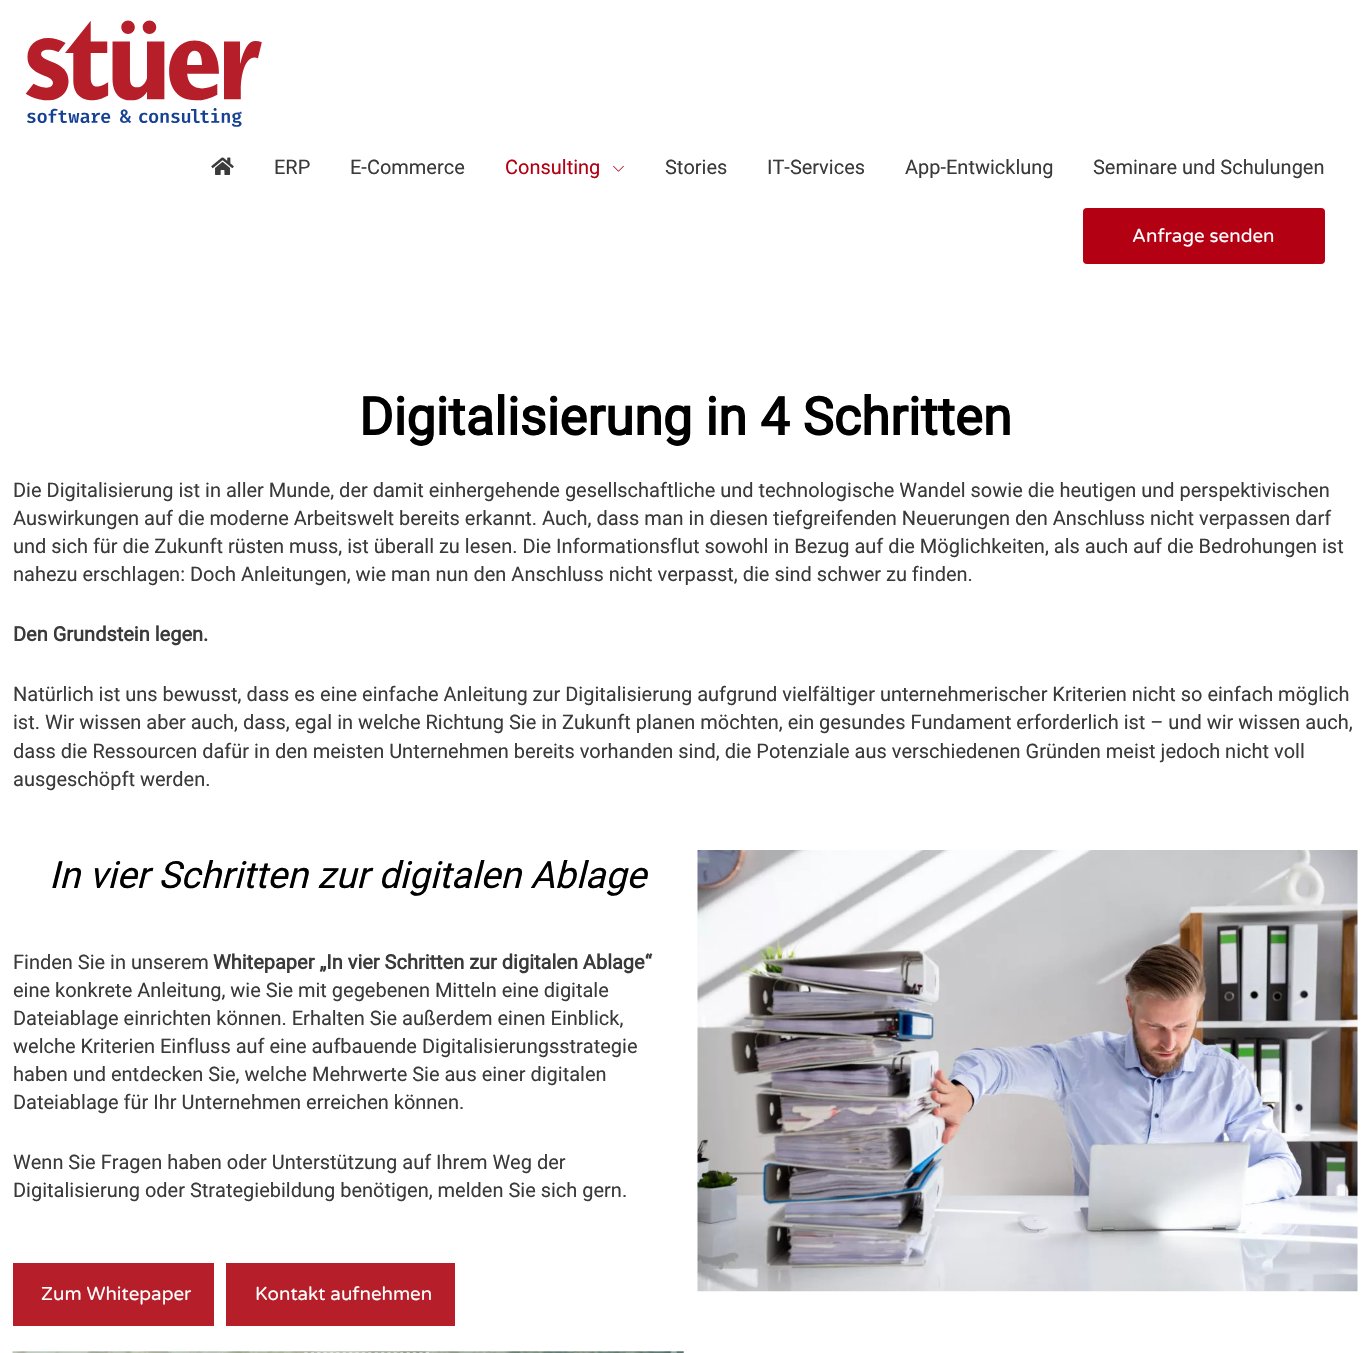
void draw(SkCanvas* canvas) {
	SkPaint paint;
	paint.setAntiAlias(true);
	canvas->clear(0xffffffff);
	canvas->drawImageRect(SkImages::DeferredFromEncodedData(SkData::MakeFromFileName("img1.png")), SkRect::MakeXYWH(25, 20, 237, 107), SkSamplingOptions());
	canvas->drawImageRect(SkImages::DeferredFromEncodedData(SkData::MakeFromFileName("img2.png")), SkRect::MakeXYWH(211, 157, 23, 18), SkSamplingOptions());
	SkFont f1(fontMgr->matchFamilyStyle("Roboto", SkFontStyle::Normal()), 20);
	f1.setSubpixel(true);
	paint.setColor(0xff3a3a3a);
	canvas->drawString("ERP", 274, 174, f1, paint);
	canvas->drawString("E-Commerce", 350, 174, f1, paint);
	paint.setColor(0xffb30013);
	canvas->drawString("Consulting", 505, 174, f1, paint);
	canvas->drawImageRect(SkImages::DeferredFromEncodedData(SkData::MakeFromFileName("img3.png")), SkRect::MakeXYWH(613, 165, 11, 7), SkSamplingOptions());
	paint.setColor(0xff3a3a3a);
	canvas->drawString("Stories", 665, 174, f1, paint);
	canvas->drawString("IT-Services", 767, 174, f1, paint);
	canvas->drawString("App-Entwicklung", 905, 174, f1, paint);
	canvas->drawString("Seminare und Schulungen", 1093, 174, f1, paint);
	paint.setColor(0xffb30013);
	canvas->drawRoundRect(SkRect::MakeXYWH(1083, 208, 242, 56), 4, 4, paint);
	SkFont f2(fontMgr->matchFamilyStyle("Varela Round", SkFontStyle::Normal()), 18.75);
	f2.setSubpixel(true);
	paint.setColor(0xffffffff);
	canvas->drawString("Anfrage senden", 1132, 242, f2, paint);
	SkFont f3(fontMgr->matchFamilyStyle("Roboto", SkFontStyle::Bold()), 52.5);
	f3.setSubpixel(true);
	paint.setColor(0xff000000);
	canvas->drawString("Digitalisierung in 4 Schritten", 359, 435, f3, paint);
	paint.setColor(0xff3a3a3a);
	canvas->drawString("Die Digitalisierung ist in aller Munde, der damit einhergehende gesellschaftliche und technologische Wandel sowie die heutigen und perspektivischen", 13, 497, f1, paint);
	canvas->drawString("Auswirkungen auf die moderne Arbeitswelt bereits erkannt. Auch, dass man in diesen tiefgreifenden Neuerungen den Anschluss nicht verpassen darf", 13, 525, f1, paint);
	canvas->drawString("und sich für die Zukunft rüsten muss, ist überall zu lesen. Die Informationsflut sowohl in Bezug auf die Möglichkeiten, als auch auf die Bedrohungen ist", 13, 553, f1, paint);
	canvas->drawString("nahezu erschlagen: Doch Anleitungen, wie man nun den Anschluss nicht verpasst, die sind schwer zu finden.", 13, 581, f1, paint);
	SkFont f4(fontMgr->matchFamilyStyle("Roboto", SkFontStyle::Bold()), 20);
	f4.setSubpixel(true);
	canvas->drawString("Den Grundstein legen.", 13, 641, f4, paint);
	canvas->drawString("Natürlich ist uns bewusst, dass es eine einfache Anleitung zur Digitalisierung aufgrund vielfältiger unternehmerischer Kriterien nicht so einfach möglich", 13, 701, f1, paint);
	canvas->drawString("ist. Wir wissen aber auch, dass, egal in welche Richtung Sie in Zukunft planen möchten, ein gesundes Fundament erforderlich ist – und wir wissen auch,", 13, 729, f1, paint);
	canvas->drawString("dass die Ressourcen dafür in den meisten Unternehmen bereits vorhanden sind, die Potenziale aus verschiedenen Gründen meist jedoch nicht voll", 13, 758, f1, paint);
	canvas->drawString("ausgeschöpft werden.", 13, 786, f1, paint);
	SkFont f5(fontMgr->matchFamilyStyle("Roboto", SkFontStyle::Italic()), 37.5);
	f5.setSubpixel(true);
	paint.setColor(0xff000000);
	canvas->drawString("In vier Schritten zur digitalen Ablage", 49, 888, f5, paint);
	paint.setColor(0xff3a3a3a);
	canvas->drawString("Finden Sie in unserem", 13, 969, f1, paint);
	canvas->drawString("Whitepaper „In vier Schritten zur digitalen Ablage“", 213, 969, f4, paint);
	canvas->drawString("eine konkrete Anleitung, wie Sie mit gegebenen Mitteln eine digitale", 13, 997, f1, paint);
	canvas->drawString("Dateiablage einrichten können. Erhalten Sie außerdem einen Einblick,", 13, 1025, f1, paint);
	canvas->drawString("welche Kriterien Einfluss auf eine aufbauende Digitalisierungsstrategie", 13, 1053, f1, paint);
	canvas->drawString("haben und entdecken Sie, welche Mehrwerte Sie aus einer digitalen", 13, 1081, f1, paint);
	canvas->drawString("Dateiablage für Ihr Unternehmen erreichen können.", 13, 1109, f1, paint);
	canvas->drawString("Wenn Sie Fragen haben oder Unterstützung auf Ihrem Weg der", 13, 1169, f1, paint);
	canvas->drawString("Digitalisierung oder Strategiebildung benötigen, melden Sie sich gern.", 13, 1197, f1, paint);
	paint.setColor(0xffb61f29);
	canvas->drawRect(SkRect::MakeXYWH(13, 1263, 201, 63), paint);
	paint.setColor(0xffffffff);
	canvas->drawString("Zum Whitepaper", 41, 1300, f2, paint);
	paint.setColor(0xffb61f29);
	canvas->drawRect(SkRect::MakeXYWH(226, 1263, 229, 63), paint);
	paint.setColor(0xffffffff);
	canvas->drawString("Kontakt aufnehmen", 255, 1300, f2, paint);
	canvas->drawImageRect(SkImages::DeferredFromEncodedData(SkData::MakeFromFileName("img4.png")), SkRect::MakeXYWH(697, 850, 661, 442), SkSamplingOptions());
	canvas->drawImageRect(SkImages::DeferredFromEncodedData(SkData::MakeFromFileName("img5.png")), SkRect::MakeXYWH(12, 1351, 672, 2), SkSamplingOptions());
}
